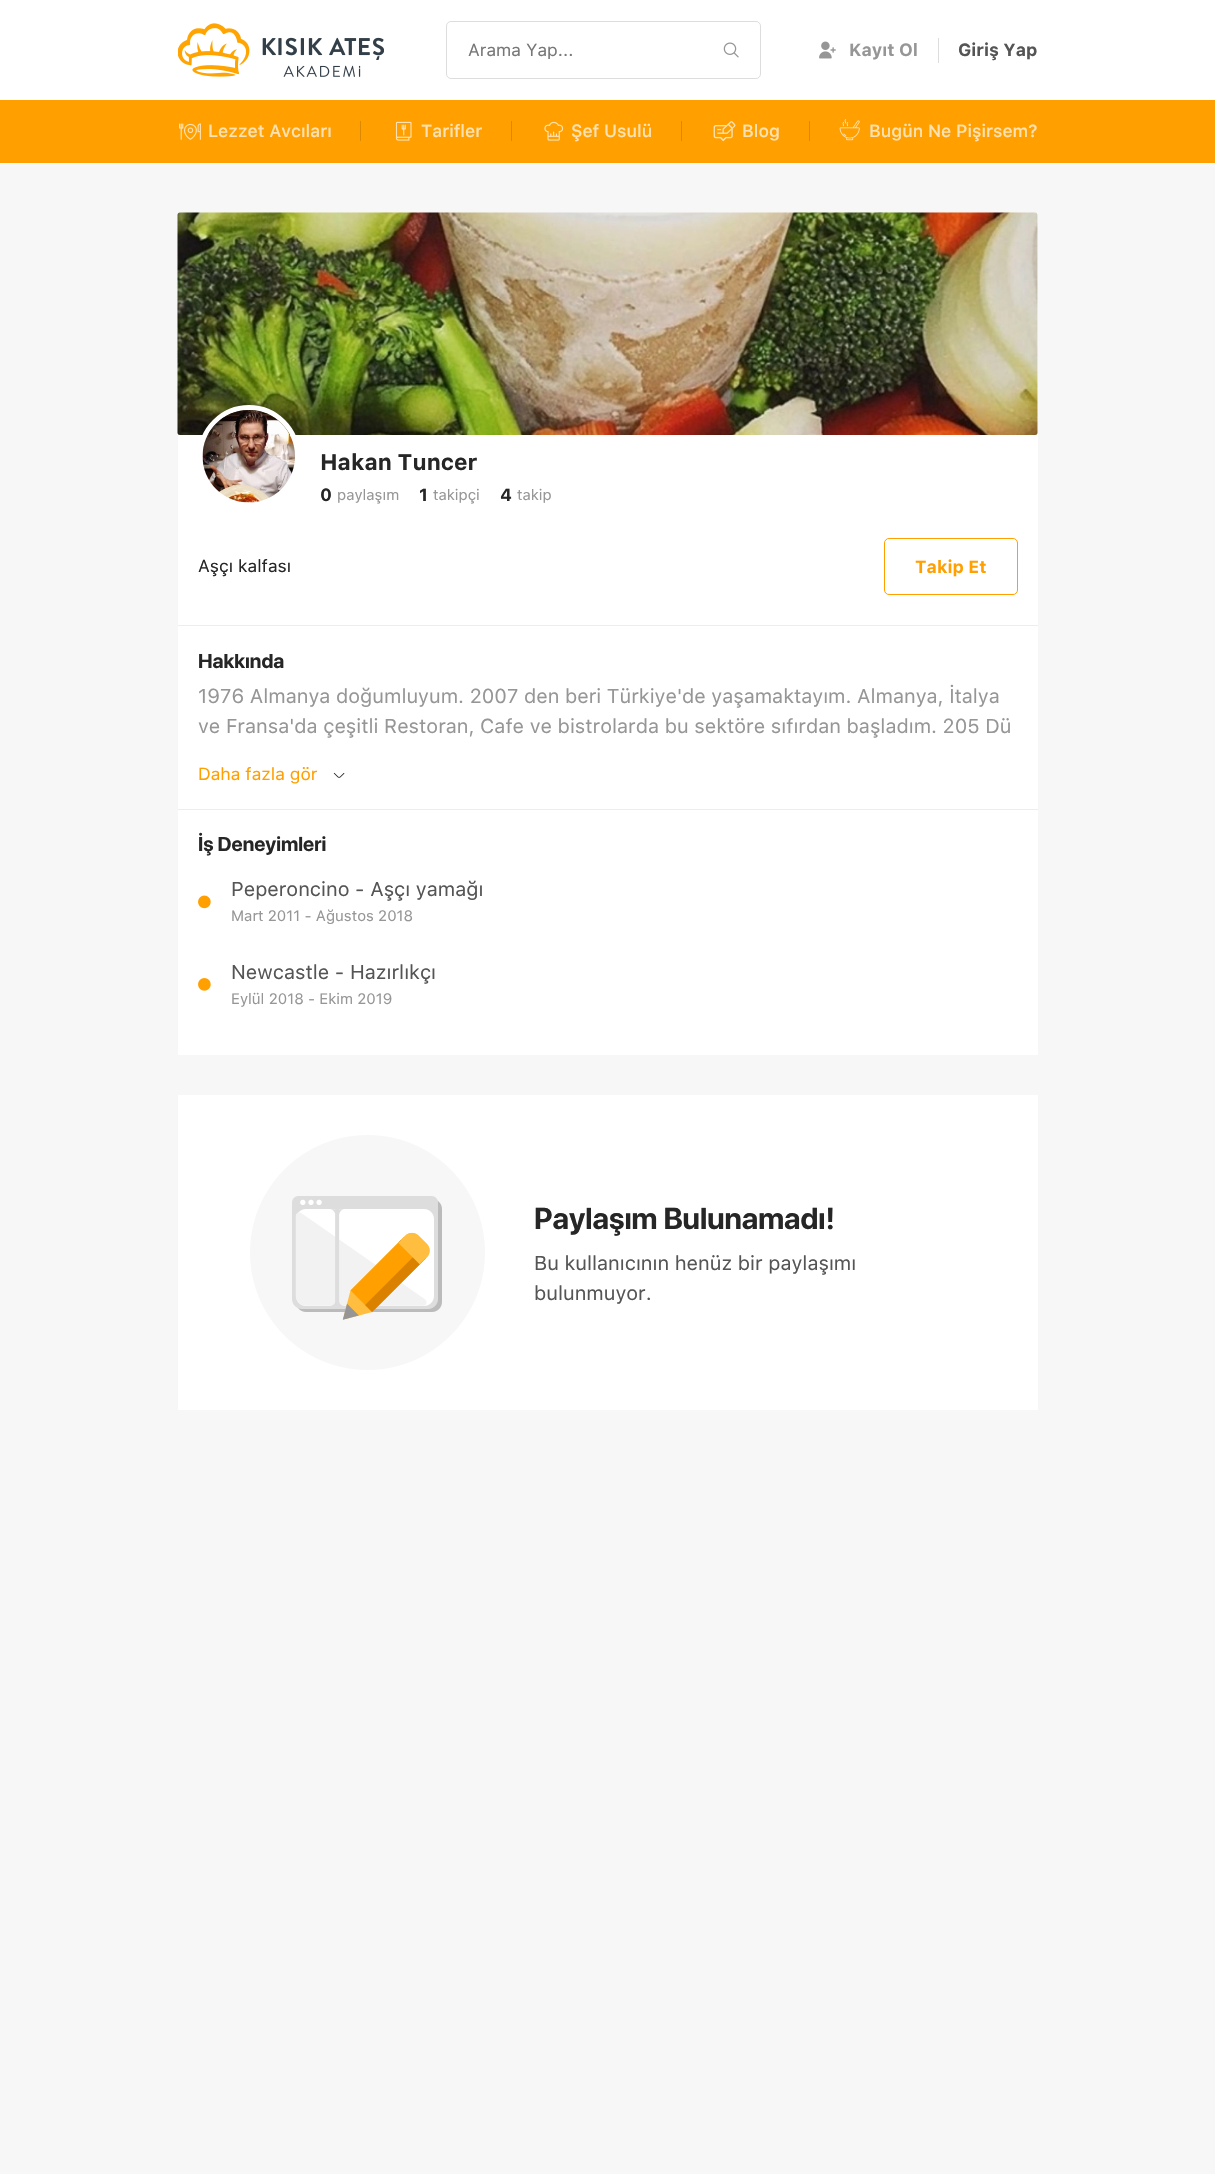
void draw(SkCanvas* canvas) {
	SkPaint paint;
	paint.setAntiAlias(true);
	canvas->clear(0xfff7f7f7);
	paint.setColor(0xffffffff);
	canvas->drawRect(SkRect::MakeXYWH(0, 0, 1215, 100), paint);
	canvas->drawImageRect(SkImages::DeferredFromEncodedData(SkData::MakeFromFileName("img1.png")), SkRect::MakeXYWH(178, 23, 206, 54), SkSamplingOptions());
	paint.setStroke(true);
	paint.setStrokeWidth(1);
	paint.setColor(0xffdddddd);
	canvas->drawRoundRect(SkRect::MakeXYWH(446.5, 21.5, 314, 57), 4.5, 4.5, paint);
	SkFont f1(fontMgr->matchFamilyStyle("SF Pro Text", SkFontStyle::Normal()), 17.5);
	f1.setSubpixel(true);
	paint.setStroke(false);
	paint.setColor(0xff777777);
	canvas->drawString("Arama Yap...", 468, 56, f1, paint);
	canvas->drawImageRect(SkImages::DeferredFromEncodedData(SkData::MakeFromFileName("img2.png")), SkRect::MakeXYWH(723, 42, 16, 16), SkSamplingOptions());
	canvas->drawImageRect(SkImages::DeferredFromEncodedData(SkData::MakeFromFileName("img3.png")), SkRect::MakeXYWH(819, 41, 17, 18), SkSamplingOptions());
	SkFont f2(fontMgr->matchFamilyStyle("SF Pro Text", SkFontStyle::Bold()), 17.5);
	f2.setSubpixel(true);
	paint.setColor(0xff969696);
	canvas->drawString("Kayıt Ol", 849, 56, f2, paint);
	paint.setColor(0xffdddddd);
	canvas->drawRect(SkRect::MakeXYWH(938, 38, 1, 25), paint);
	paint.setColor(0xff555555);
	canvas->drawString("Giriş Yap", 958, 56, f2, paint);
	paint.setColor(0xffff9f00);
	canvas->drawRect(SkRect::MakeXYWH(0, 100, 1215, 63), paint);
	canvas->drawImageRect(SkImages::DeferredFromEncodedData(SkData::MakeFromFileName("img4.png")), SkRect::MakeXYWH(179, 123, 22, 17), SkSamplingOptions());
	SkFont f3(fontMgr->matchFamilyStyle("SF Pro Text", SkFontStyle(500, SkFontStyle::kNormal_Width, SkFontStyle::kUpright_Slant)), 17.5);
	f3.setSubpixel(true);
	paint.setColor(0xffffe2b3);
	canvas->drawString("Lezzet Avcıları", 208, 137, f3, paint);
	paint.setColor(0xffdb8900);
	canvas->drawRect(SkRect::MakeXYWH(360, 121, 1, 20), paint);
	canvas->drawImageRect(SkImages::DeferredFromEncodedData(SkData::MakeFromFileName("img5.png")), SkRect::MakeXYWH(395, 121, 17, 20), SkSamplingOptions());
	paint.setColor(0xffffe2b3);
	canvas->drawString("Tarifler", 421, 137, f3, paint);
	paint.setColor(0xffdb8900);
	canvas->drawRect(SkRect::MakeXYWH(511, 121, 1, 20), paint);
	canvas->drawImageRect(SkImages::DeferredFromEncodedData(SkData::MakeFromFileName("img6.png")), SkRect::MakeXYWH(544, 121, 20, 20), SkSamplingOptions());
	paint.setColor(0xffffe2b3);
	canvas->drawString("Şef Usulü", 571, 137, f3, paint);
	paint.setColor(0xffdb8900);
	canvas->drawRect(SkRect::MakeXYWH(681, 121, 1, 20), paint);
	canvas->drawImageRect(SkImages::DeferredFromEncodedData(SkData::MakeFromFileName("img7.png")), SkRect::MakeXYWH(713, 121, 23, 21), SkSamplingOptions());
	paint.setColor(0xffffe2b3);
	canvas->drawString("Blog", 742, 137, f3, paint);
	paint.setColor(0xffdb8900);
	canvas->drawRect(SkRect::MakeXYWH(809, 121, 1, 20), paint);
	canvas->drawImageRect(SkImages::DeferredFromEncodedData(SkData::MakeFromFileName("img8.png")), SkRect::MakeXYWH(839, 119, 21, 22), SkSamplingOptions());
	paint.setColor(0xffffe2b3);
	canvas->drawString("Bugün Ne Pişirsem?", 869, 137, f3, paint);
	paint.setColor(0xffffffff);
	canvas->drawRect(SkRect::MakeXYWH(178, 213, 860, 842), paint);
	canvas->drawImageRect(SkImages::DeferredFromEncodedData(SkData::MakeFromFileName("img9.png")), SkRect::MakeXYWH(177, 212, 861, 223), SkSamplingOptions());
	paint.setStroke(true);
	paint.setStrokeWidth(5);
	canvas->drawRoundRect(SkRect::MakeXYWH(200.5, 407.5, 97, 98), 48.5, 48.5, paint);
	canvas->drawImageRect(SkImages::DeferredFromEncodedData(SkData::MakeFromFileName("img10.png")), SkRect::MakeXYWH(202, 410, 93, 93), SkSamplingOptions());
	SkFont f4(fontMgr->matchFamilyStyle("SF Pro Text", SkFontStyle::Bold()), 22.5);
	f4.setSubpixel(true);
	paint.setStroke(false);
	paint.setColor(0xff262626);
	canvas->drawString("Hakan Tuncer", 320, 470, f4, paint);
	canvas->drawString("0", 320, 501, f2, paint);
	SkFont f5(fontMgr->matchFamilyStyle("SF Pro Text", SkFontStyle::Normal()), 15);
	f5.setSubpixel(true);
	paint.setColor(0xff969696);
	canvas->drawString("paylaşım", 337, 500, f5, paint);
	paint.setColor(0xff262626);
	canvas->drawString("1", 419, 501, f2, paint);
	paint.setColor(0xff969696);
	canvas->drawString("takipçi", 433, 500, f5, paint);
	paint.setColor(0xff262626);
	canvas->drawString("4", 500, 501, f2, paint);
	paint.setColor(0xff969696);
	canvas->drawString("takip", 517, 500, f5, paint);
	paint.setColor(0xff262626);
	canvas->drawString("Aşçı kalfası", 198, 572, f1, paint);
	paint.setStroke(true);
	paint.setStrokeWidth(1);
	paint.setColor(0xffff9f00);
	canvas->drawRoundRect(SkRect::MakeXYWH(884.5, 538.5, 133, 56), 4.5, 4.5, paint);
	paint.setStroke(false);
	canvas->drawString("Takip Et", 915, 573, f2, paint);
	paint.setColor(0xffededed);
	canvas->drawRect(SkRect::MakeXYWH(178, 625, 860, 1), paint);
	SkFont f6(fontMgr->matchFamilyStyle("SF Pro Display", SkFontStyle::Bold()), 20);
	f6.setSubpixel(true);
	paint.setColor(0xff262626);
	canvas->drawString("Hakkında", 198, 668, f6, paint);
	SkFont f7(fontMgr->matchFamilyStyle("SF Pro Text", SkFontStyle::Normal()), 20);
	f7.setSubpixel(true);
	paint.setColor(0xff969696);
	canvas->drawString("1976 Almanya doğumluyum. 2007 den beri Türkiye'de yaşamaktayım. Almanya, İtalya", 198, 703, f7, paint);
	canvas->drawString("ve Fransa'da çeşitli Restoran, Cafe ve bistrolarda bu sektöre sıfırdan başladım. 205 Dü", 198, 733, f7, paint);
	paint.setColor(0xffff9f00);
	canvas->drawString("Daha fazla gör", 198, 780, f1, paint);
	canvas->drawImageRect(SkImages::DeferredFromEncodedData(SkData::MakeFromFileName("img11.png")), SkRect::MakeXYWH(333, 772, 12, 6), SkSamplingOptions());
	paint.setColor(0xffededed);
	canvas->drawRect(SkRect::MakeXYWH(178, 809, 860, 1), paint);
	paint.setColor(0xff262626);
	canvas->drawString("İş Deneyimleri", 198, 851, f6, paint);
	canvas->drawImageRect(SkImages::DeferredFromEncodedData(SkData::MakeFromFileName("img12.png")), SkRect::MakeXYWH(198, 895, 13, 14), SkSamplingOptions());
	paint.setColor(0xff555555);
	canvas->drawString("Peperoncino - Aşçı yamağı", 231, 896, f7, paint);
	paint.setColor(0xff969696);
	canvas->drawString("Mart 2011 - Ağustos 2018", 231, 921, f5, paint);
	canvas->drawImageRect(SkImages::DeferredFromEncodedData(SkData::MakeFromFileName("img13.png")), SkRect::MakeXYWH(198, 978, 13, 13), SkSamplingOptions());
	paint.setColor(0xff555555);
	canvas->drawString("Newcastle - Hazırlıkçı", 231, 979, f7, paint);
	paint.setColor(0xff969696);
	canvas->drawString("Eylül 2018 - Ekim 2019", 231, 1004, f5, paint);
	paint.setColor(0xffffffff);
	canvas->drawRect(SkRect::MakeXYWH(178, 1095, 860, 315), paint);
	canvas->drawImageRect(SkImages::DeferredFromEncodedData(SkData::MakeFromFileName("img14.png")), SkRect::MakeXYWH(250, 1135, 235, 235), SkSamplingOptions());
	SkFont f8(fontMgr->matchFamilyStyle("SF Pro Display", SkFontStyle::Bold()), 30);
	f8.setSubpixel(true);
	paint.setColor(0xff262626);
	canvas->drawString("Paylaşım Bulunamadı!", 534, 1229, f8, paint);
	paint.setColor(0xff555555);
	canvas->drawString("Bu kullanıcının henüz bir paylaşımı", 534, 1270, f7, paint);
	canvas->drawString("bulunmuyor.", 534, 1300, f7, paint);
}
